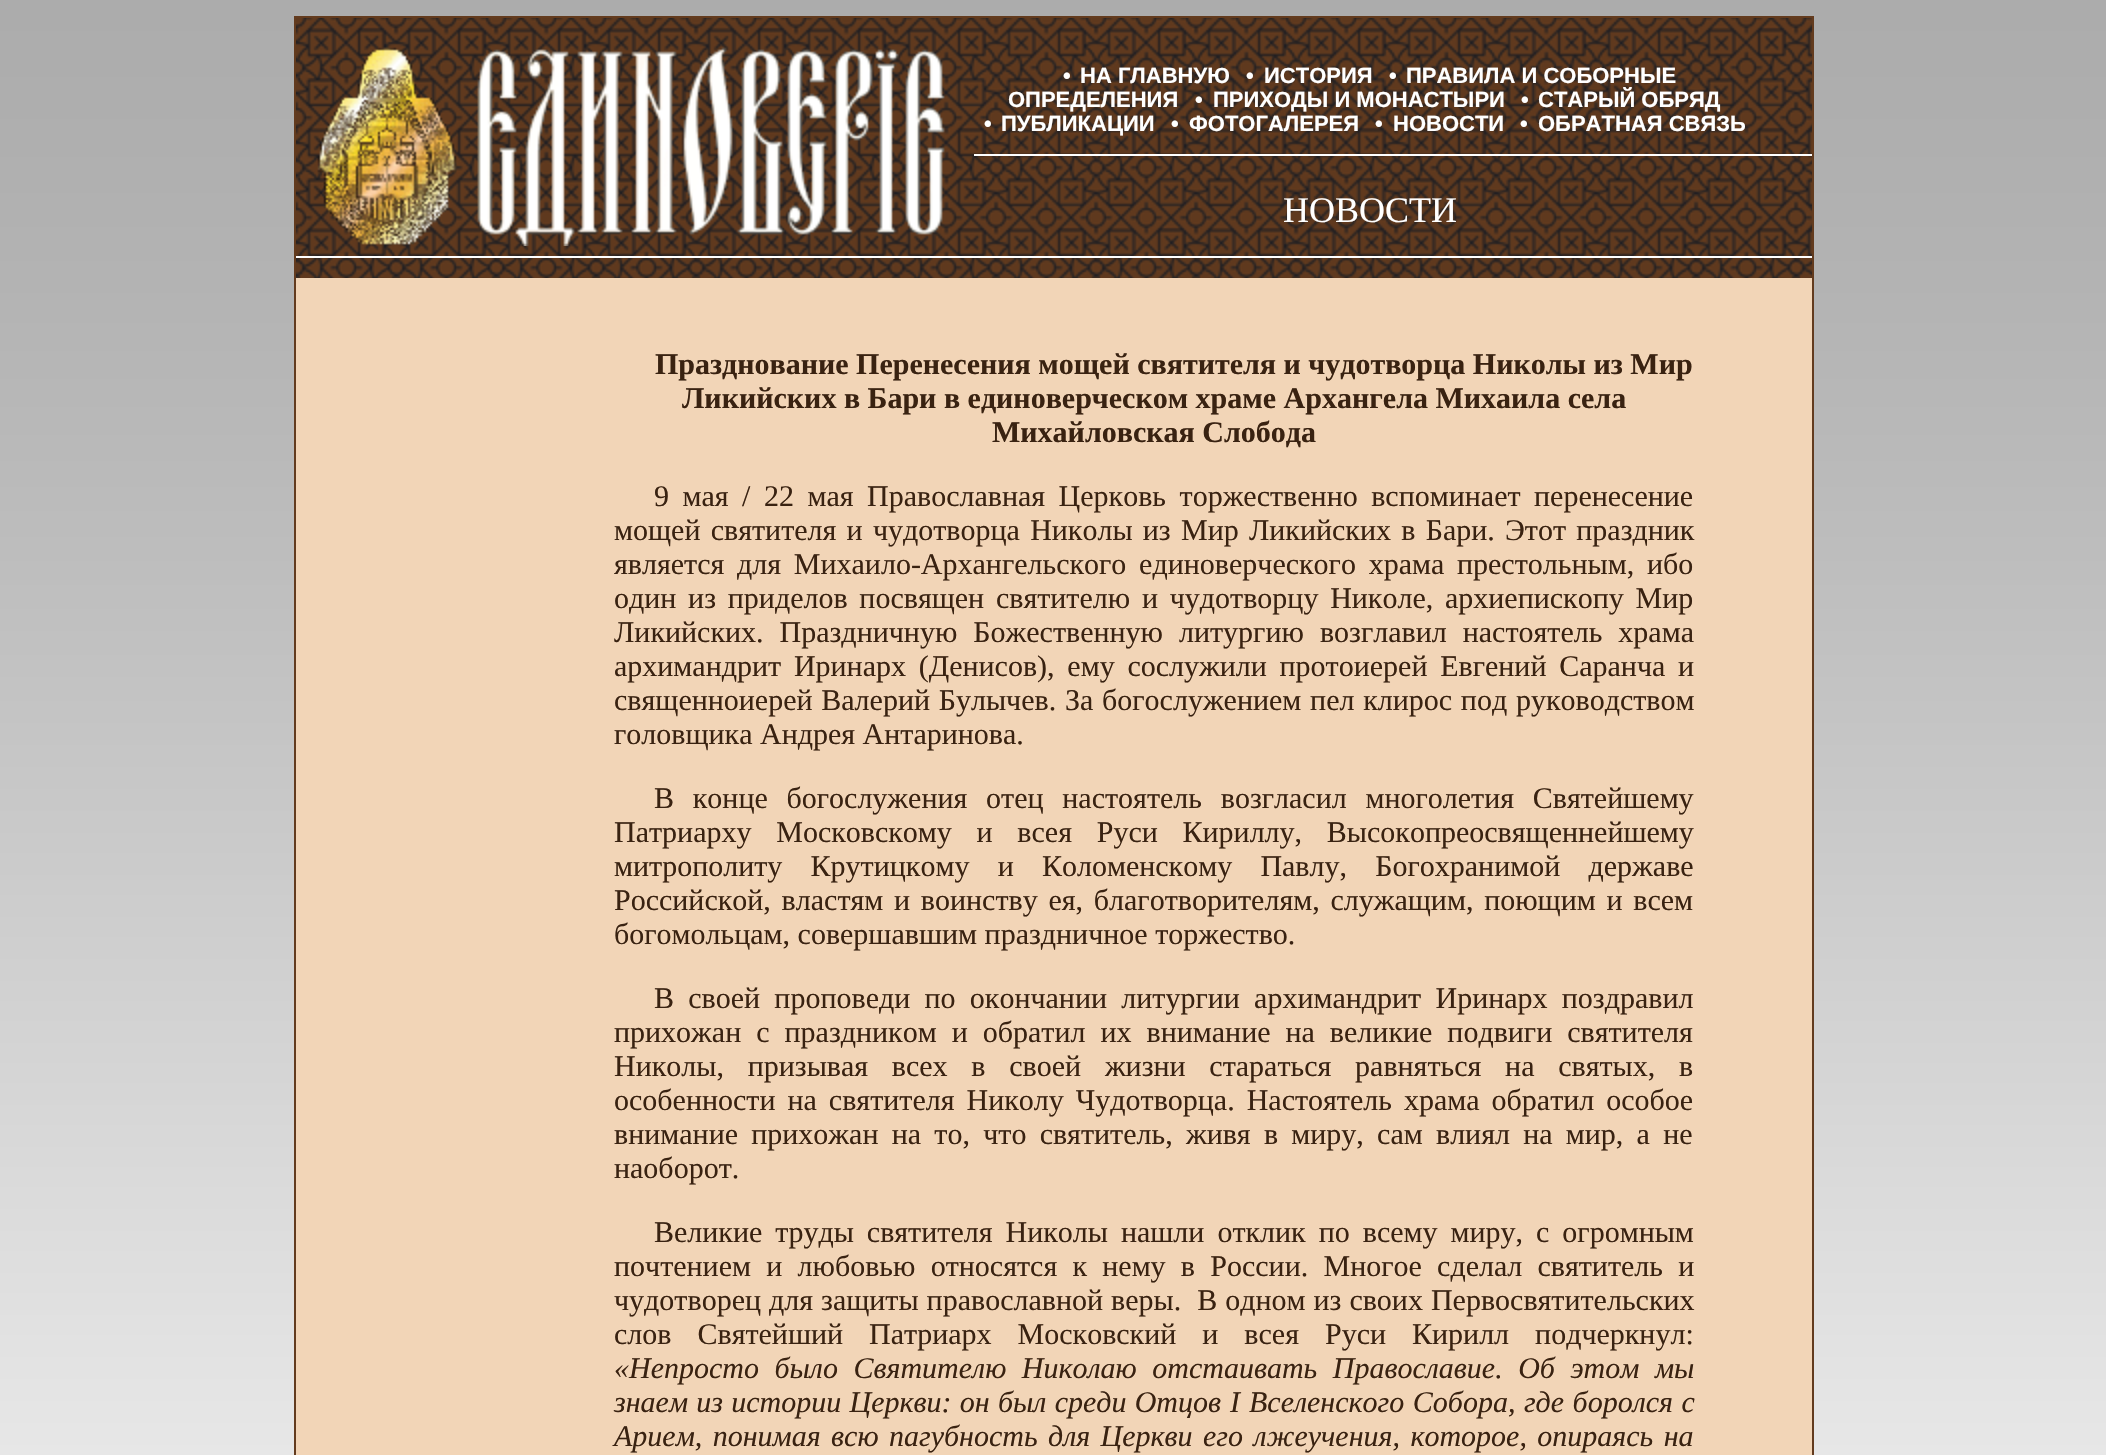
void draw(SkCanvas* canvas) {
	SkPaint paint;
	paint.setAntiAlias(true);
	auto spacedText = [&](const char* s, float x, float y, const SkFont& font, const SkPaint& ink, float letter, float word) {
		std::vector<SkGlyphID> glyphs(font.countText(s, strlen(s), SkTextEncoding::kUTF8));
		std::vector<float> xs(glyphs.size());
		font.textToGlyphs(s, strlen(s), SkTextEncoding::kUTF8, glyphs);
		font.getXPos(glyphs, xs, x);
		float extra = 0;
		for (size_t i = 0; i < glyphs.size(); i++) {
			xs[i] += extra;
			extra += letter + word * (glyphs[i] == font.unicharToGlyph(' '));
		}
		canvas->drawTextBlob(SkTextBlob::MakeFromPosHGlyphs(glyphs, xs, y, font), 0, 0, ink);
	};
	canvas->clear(0xffffffff);
	canvas->drawImageRect(SkImages::DeferredFromEncodedData(SkData::MakeFromFileName("img1.png")), SkRect::MakeXYWH(0, 0, 2106, 1455), SkSamplingOptions());
	paint.setColor(0xfff2d5b7);
	canvas->drawRect(SkRect::MakeXYWH(296, 278, 1516, 1177), paint);
	paint.setStroke(true);
	paint.setStrokeWidth(2);
	paint.setColor(0xff633b1e);
	canvas->drawRect(SkRect::MakeXYWH(295, 17, 1518, 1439), paint);
	canvas->drawImageRect(SkImages::DeferredFromEncodedData(SkData::MakeFromFileName("img2.png")), SkRect::MakeXYWH(296, 18, 1516, 260), SkSamplingOptions());
	canvas->drawImageRect(SkImages::DeferredFromEncodedData(SkData::MakeFromFileName("img3.png")), SkRect::MakeXYWH(317, 47, 140, 198), SkSamplingOptions());
	canvas->drawImageRect(SkImages::DeferredFromEncodedData(SkData::MakeFromFileName("img4.png")), SkRect::MakeXYWH(477, 47, 468, 199), SkSamplingOptions());
	SkFont f1(fontMgr->matchFamilyStyle("Liberation Sans", SkFontStyle::Bold()), 22);
	f1.setSubpixel(true);
	paint.setStroke(false);
	paint.setColor(0xffffffff);
	canvas->drawString("•", 1063, 83, f1, paint);
	canvas->drawString("НА ГЛАВНУЮ", 1080, 83, f1, paint);
	canvas->drawString("•", 1246, 83, f1, paint);
	canvas->drawString("ИСТОРИЯ", 1264, 83, f1, paint);
	canvas->drawString("•", 1389, 83, f1, paint);
	canvas->drawString("ПРАВИЛА И СОБОРНЫЕ", 1406, 83, f1, paint);
	canvas->drawString("ОПРЕДЕЛЕНИЯ", 1008, 107, f1, paint);
	canvas->drawString("•", 1195, 107, f1, paint);
	canvas->drawString("ПРИХОДЫ И МОНАСТЫРИ", 1213, 107, f1, paint);
	canvas->drawString("•", 1521, 107, f1, paint);
	canvas->drawString("СТАРЫЙ ОБРЯД", 1538, 107, f1, paint);
	canvas->drawString("•", 984, 131, f1, paint);
	canvas->drawString("ПУБЛИКАЦИИ", 1001, 131, f1, paint);
	canvas->drawString("•", 1171, 131, f1, paint);
	canvas->drawString("ФОТОГАЛЕРЕЯ", 1189, 131, f1, paint);
	canvas->drawString("•", 1375, 131, f1, paint);
	canvas->drawString("НОВОСТИ", 1393, 131, f1, paint);
	canvas->drawString("•", 1520, 131, f1, paint);
	canvas->drawString("ОБРАТНАЯ СВЯЗЬ", 1538, 131, f1, paint);
	canvas->drawRect(SkRect::MakeXYWH(974, 154, 838, 2), paint);
	SkFont f2(fontMgr->matchFamilyStyle("Liberation Serif", SkFontStyle::Normal()), 36);
	f2.setSubpixel(true);
	canvas->drawString("НОВОСТИ", 1283, 222, f2, paint);
	canvas->drawRect(SkRect::MakeXYWH(296, 256, 1516, 2), paint);
	SkFont f3(fontMgr->matchFamilyStyle("Liberation Serif", SkFontStyle::Bold()), 30);
	f3.setSubpixel(true);
	paint.setColor(0xff392211);
	canvas->drawString("Празднование Перенесения мощей святителя и чудотворца Николы из Мир", 655, 374, f3, paint);
	canvas->drawString("Ликийских в Бари в единоверческом храме Архангела Михаила села", 682, 408, f3, paint);
	canvas->drawString("Михайловская Слобода", 992, 442, f3, paint);
	SkFont f4(fontMgr->matchFamilyStyle("Liberation Serif", SkFontStyle::Normal()), 30);
	f4.setSubpixel(true);
	spacedText("9 мая / 22 мая Православная Церковь торжественно вспоминает перенесение", 654, 506, f4, paint, 0, 6);
	spacedText("мощей святителя и чудотворца Николы из Мир Ликийских в Бари. Этот праздник", 614, 540, f4, paint, 0, 2.75);
	spacedText("является для Михаило-Архангельского единоверческого храма престольным, ибо", 614, 574, f4, paint, 0, 5.25);
	spacedText("один из приделов посвящен святителю и чудотворцу Николе, архиепископу Мир", 614, 608, f4, paint, 0, 4.25);
	spacedText("Ликийских. Праздничную Божественную литургию возглавил настоятель храма", 614, 642, f4, paint, 0, 8.5);
	spacedText("архимандрит Иринарх (Денисов), ему сослужили протоиерей Евгений Саранча и", 614, 676, f4, paint, 0, 5.25);
	spacedText("священноиерей Валерий Булычев. За богослужением пел клирос под руководством", 614, 710, f4, paint, 0, 1.25);
	canvas->drawString("головщика Андрея Антаринова.", 614, 744, f4, paint);
	spacedText("В конце богослужения отец настоятель возгласил многолетия Святейшему", 654, 808, f4, paint, 0, 11.25);
	spacedText("Патриарху Московскому и всея Руси Кириллу, Высокопреосвященнейшему", 614, 842, f4, paint, 0, 17.25);
	spacedText("митрополиту Крутицкому и Коломенскому Павлу, Богохранимой державе", 614, 876, f4, paint, 0, 20.75);
	spacedText("Российской, властям и воинству ея, благотворителям, служащим, поющим и всем", 614, 910, f4, paint, 0, 3.25);
	canvas->drawString("богомольцам, совершавшим праздничное торжество.", 614, 944, f4, paint);
	spacedText("В своей проповеди по окончании литургии архимандрит Иринарх поздравил", 654, 1008, f4, paint, 0, 6.75);
	spacedText("прихожан с праздником и обратил их внимание на великие подвиги святителя", 614, 1042, f4, paint, 0, 7.5);
	spacedText("Николы, призывая всех в своей жизни стараться равняться на святых, в", 614, 1076, f4, paint, 0, 16.25);
	spacedText("особенности на святителя Николу Чудотворца. Настоятель храма обратил особое", 614, 1110, f4, paint, 0, 4.5);
	spacedText("внимание прихожан на то, что святитель, живя в миру, сам влиял на мир, а не", 614, 1144, f4, paint, 0, 5.75);
	canvas->drawString("наоборот.", 614, 1178, f4, paint);
	spacedText("Великие труды святителя Николы нашли отклик по всему миру, с огромным", 654, 1242, f4, paint, 0, 5.5);
	spacedText("почтением и любовью относятся к нему в России. Многое сделал святитель и", 614, 1276, f4, paint, 0, 7.75);
	spacedText("чудотворец для защиты православной веры.  В одном из своих Первосвятительских", 614, 1310, f4, paint, 0, 0.5);
	spacedText("слов Святейший Патриарх Московский и всея Руси Кирилл подчеркнул:", 614, 1344, f4, paint, 0, 18.5);
	SkFont f5(fontMgr->matchFamilyStyle("Liberation Serif", SkFontStyle::Italic()), 30);
	f5.setSubpixel(true);
	spacedText("«Непросто было Святителю Николаю отстаивать Православие. Об этом мы", 614, 1378, f5, paint, 0, 8);
	spacedText("знаем из истории Церкви: он был среди Отцов", 614, 1412, f5, paint, 0, 0.75);
	canvas->drawString("I", 1230, 1412, f5, paint);
	spacedText("Вселенского Собора, где боролся с", 1249, 1412, f5, paint, 0, 1);
	spacedText("Арием, понимая всю пагубность для Церкви его лжеучения, которое, опираясь на", 614, 1446, f5, paint, 0, 2.9);
}
